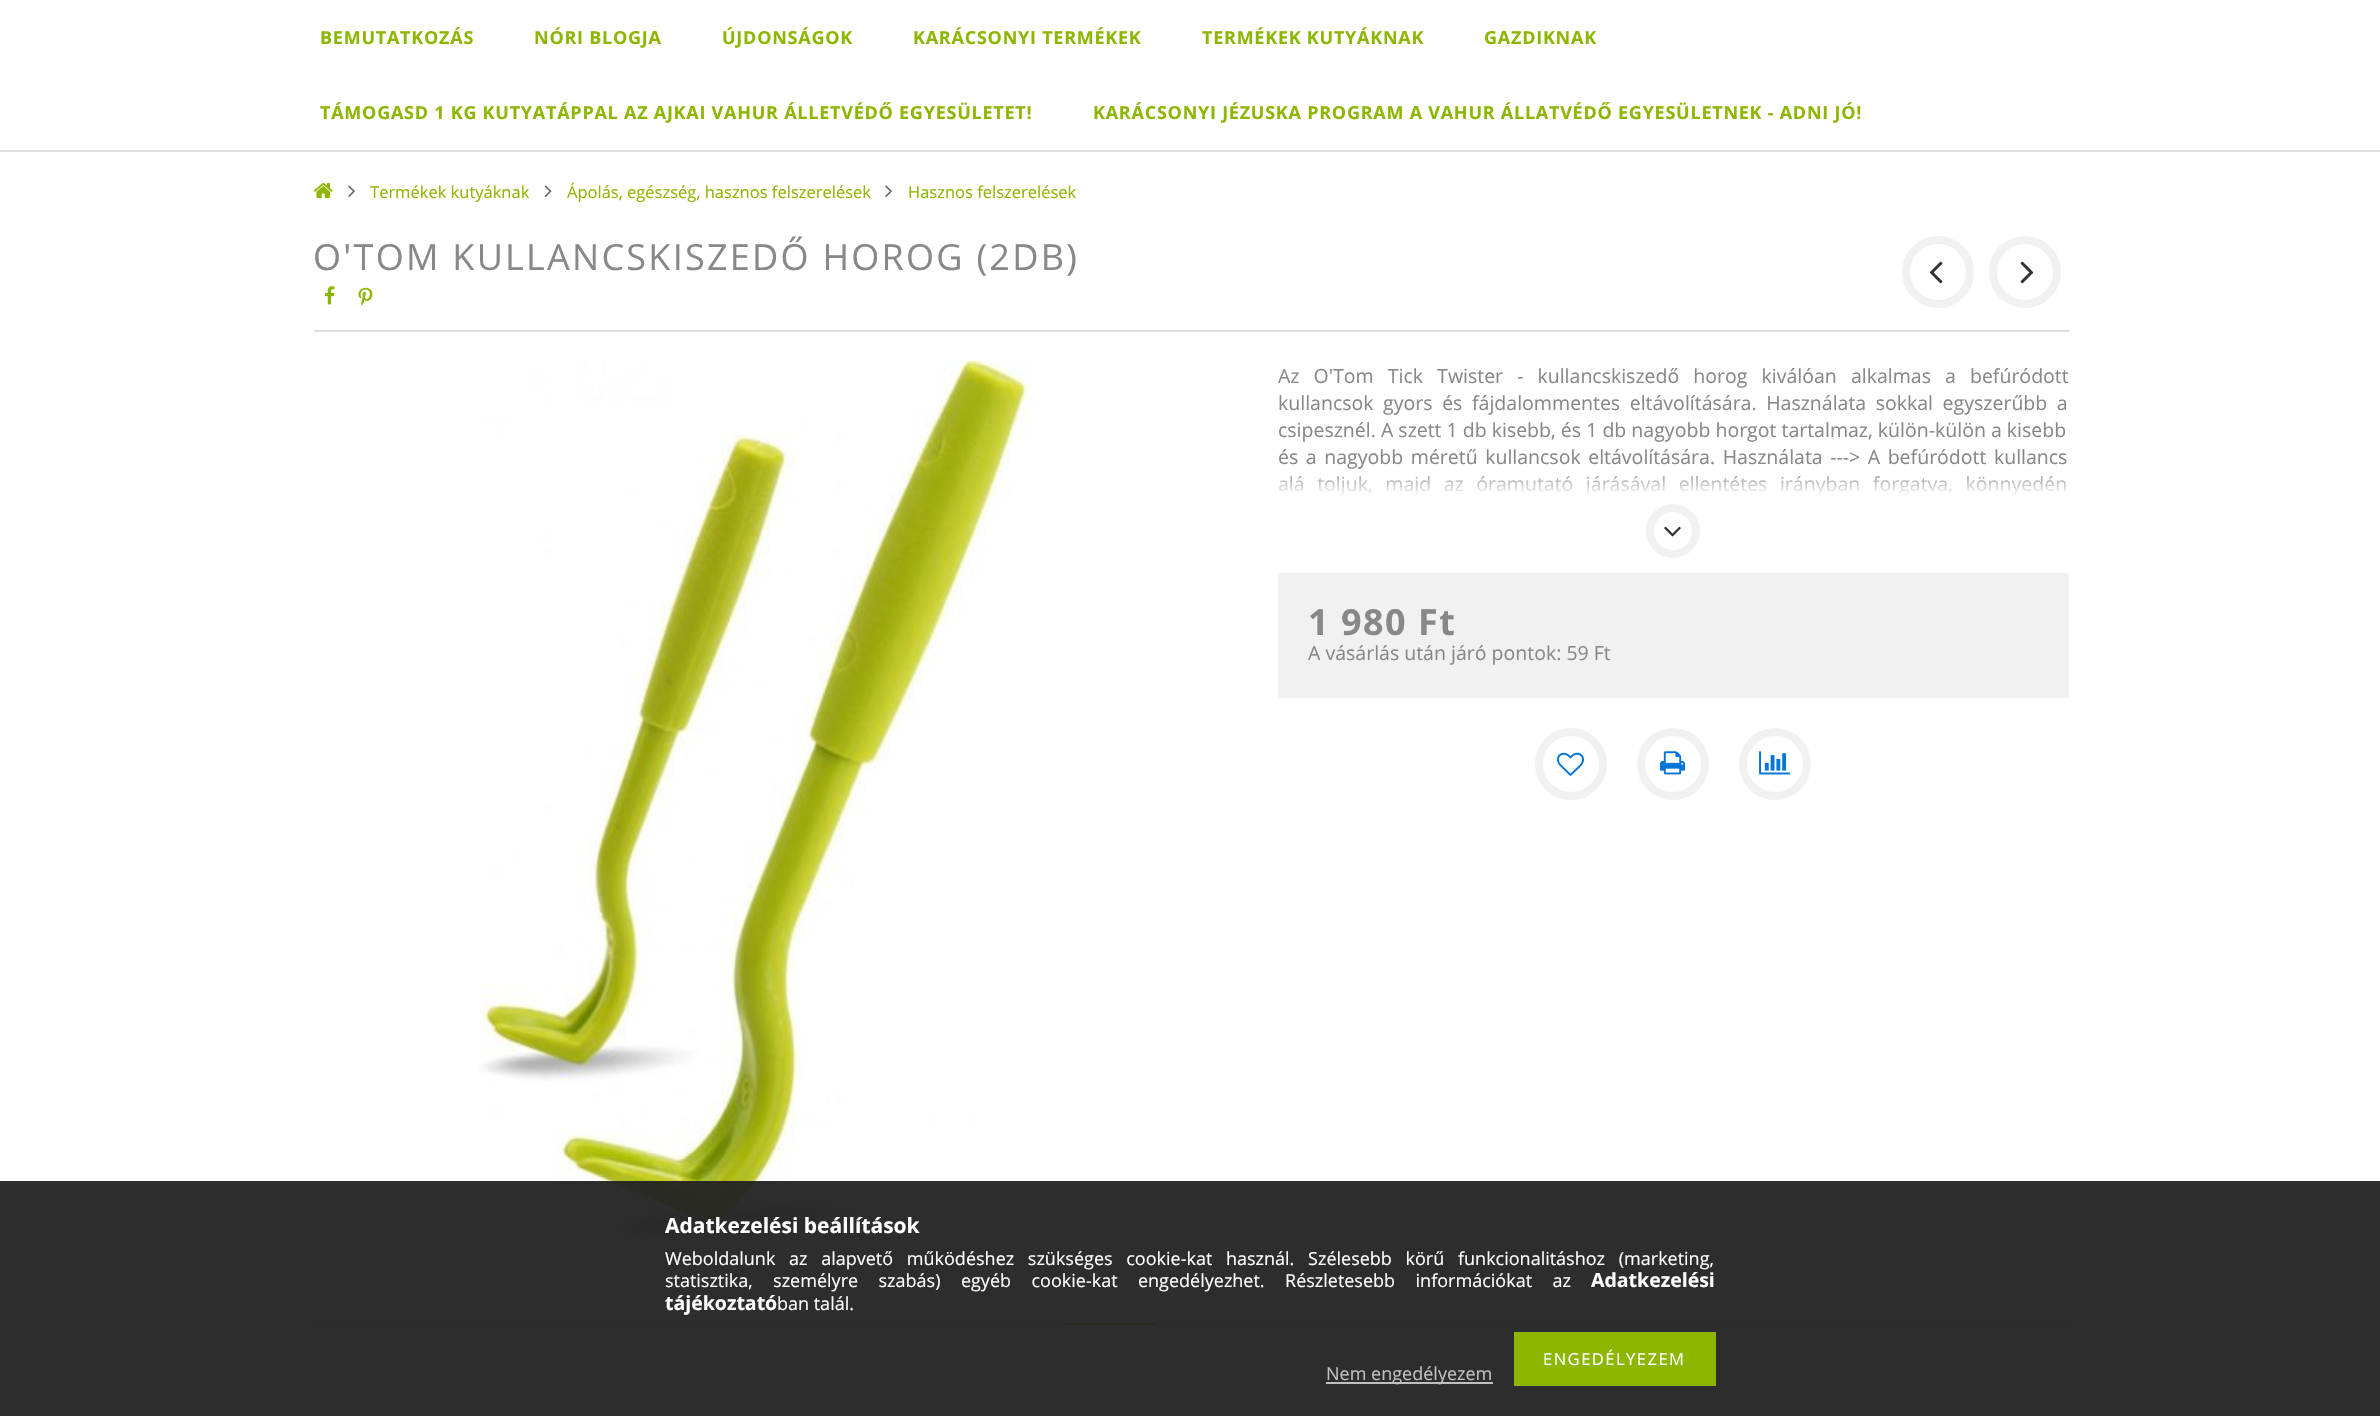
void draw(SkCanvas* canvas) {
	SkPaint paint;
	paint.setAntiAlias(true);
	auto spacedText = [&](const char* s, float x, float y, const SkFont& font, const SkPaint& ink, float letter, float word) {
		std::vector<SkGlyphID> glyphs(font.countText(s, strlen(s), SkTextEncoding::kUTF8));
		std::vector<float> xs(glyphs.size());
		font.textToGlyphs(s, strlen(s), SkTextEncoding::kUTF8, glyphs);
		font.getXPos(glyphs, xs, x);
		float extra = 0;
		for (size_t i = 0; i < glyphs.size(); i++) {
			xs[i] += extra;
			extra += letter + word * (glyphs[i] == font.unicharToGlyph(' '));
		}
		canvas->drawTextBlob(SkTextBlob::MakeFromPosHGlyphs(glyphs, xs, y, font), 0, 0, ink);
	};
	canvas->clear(0xffffffff);
	paint.setColor(0xffdddddd);
	canvas->drawRect(SkRect::MakeXYWH(0, 150, 2380, 2), paint);
	SkFont f1(fontMgr->matchFamilyStyle("Open Sans", SkFontStyle::Bold()), 18);
	f1.setSubpixel(true);
	paint.setColor(0xff8db600);
	spacedText("BEMUTATKOZÁS", 320, 44, f1, paint, 0.75, 0);
	spacedText("NÓRI BLOGJA", 534, 44, f1, paint, 0.75, 0);
	spacedText("ÚJDONSÁGOK", 722, 44, f1, paint, 0.75, 0);
	spacedText("KARÁCSONYI TERMÉKEK", 913, 44, f1, paint, 0.75, 0);
	spacedText("TERMÉKEK KUTYÁKNAK", 1202, 44, f1, paint, 0.75, 0);
	spacedText("GAZDIKNAK", 1484, 44, f1, paint, 0.75, 0);
	spacedText("TÁMOGASD 1 KG KUTYATÁPPAL AZ AJKAI VAHUR ÁLLETVÉDŐ EGYESÜLETET!", 320, 119, f1, paint, 0.75, 0);
	spacedText("KARÁCSONYI JÉZUSKA PROGRAM A VAHUR ÁLLATVÉDŐ EGYESÜLETNEK - ADNI JÓ!", 1093, 119, f1, paint, 0.75, 0);
	canvas->drawImageRect(SkImages::DeferredFromEncodedData(SkData::MakeFromFileName("img1.png")), SkRect::MakeXYWH(313, 183, 20, 15), SkSamplingOptions());
	canvas->drawImageRect(SkImages::DeferredFromEncodedData(SkData::MakeFromFileName("img2.png")), SkRect::MakeXYWH(348, 185, 7, 12), SkSamplingOptions());
	SkFont f2(fontMgr->matchFamilyStyle("Open Sans", SkFontStyle::Normal()), 16.5);
	f2.setSubpixel(true);
	canvas->drawString("Termékek kutyáknak", 370, 198, f2, paint);
	canvas->drawImageRect(SkImages::DeferredFromEncodedData(SkData::MakeFromFileName("img3.png")), SkRect::MakeXYWH(544, 185, 8, 12), SkSamplingOptions());
	canvas->drawString("Ápolás, egészség, hasznos felszerelések", 567, 198, f2, paint);
	canvas->drawImageRect(SkImages::DeferredFromEncodedData(SkData::MakeFromFileName("img2.png")), SkRect::MakeXYWH(885, 185, 7, 12), SkSamplingOptions());
	canvas->drawString("Hasznos felszerelések", 908, 198, f2, paint);
	paint.setColor(0xffdddddd);
	canvas->drawRect(SkRect::MakeXYWH(314, 330, 1755, 2), paint);
	SkFont f3(fontMgr->matchFamilyStyle("Open Sans", SkFontStyle::Normal()), 36);
	f3.setSubpixel(true);
	paint.setColor(0xff888888);
	spacedText("O'TOM KULLANCSKISZEDŐ HOROG (2DB)", 313, 270, f3, paint, 2.25, 0);
	canvas->drawImageRect(SkImages::DeferredFromEncodedData(SkData::MakeFromFileName("img4.png")), SkRect::MakeXYWH(325, 286, 10, 19), SkSamplingOptions());
	canvas->drawImageRect(SkImages::DeferredFromEncodedData(SkData::MakeFromFileName("img5.png")), SkRect::MakeXYWH(358, 287, 15, 19), SkSamplingOptions());
	paint.setStroke(true);
	paint.setStrokeWidth(8);
	paint.setColor(0xfff1f1f1);
	canvas->drawCircle(1938, 272, 32, paint);
	canvas->drawImageRect(SkImages::DeferredFromEncodedData(SkData::MakeFromFileName("img6.png")), SkRect::MakeXYWH(1929, 261, 14, 23), SkSamplingOptions());
	canvas->drawCircle(2025, 272, 32, paint);
	canvas->drawImageRect(SkImages::DeferredFromEncodedData(SkData::MakeFromFileName("img7.png")), SkRect::MakeXYWH(2020, 261, 14, 23), SkSamplingOptions());
	canvas->drawImageRect(SkImages::DeferredFromEncodedData(SkData::MakeFromFileName("img8.png")), SkRect::MakeXYWH(479, 361, 555, 878), SkSamplingOptions());
	SkFont f4(fontMgr->matchFamilyStyle("Open Sans", SkFontStyle::Normal()), 19.5);
	f4.setSubpixel(true);
	paint.setStroke(false);
	paint.setColor(0xff888888);
	spacedText("Az O'Tom Tick Twister - kullancskiszedő horog kiválóan alkalmas a befúródott", 1278, 383, f4, paint, 0, 9);
	spacedText("kullancsok gyors és fájdalommentes eltávolítására. Használata sokkal egyszerűbb a", 1278, 410, f4, paint, 0, 4.5);
	canvas->drawString("csipesznél. A szett 1 db kisebb, és 1 db nagyobb horgot tartalmaz, külön-külön a kisebb", 1278, 437, f4, paint);
	spacedText("és a nagyobb méretű kullancsok eltávolítására. Használata ---> A befúródott kullancs", 1278, 464, f4, paint, 0, 2.5);
	spacedText("alá toljuk, majd az óramutató járásával ellentétes irányban forgatva, könnyedén", 1278, 491, f4, paint, 0, 7.5);
	{
		const SkColor colors[] = {0x00ffffff, 0xffffffff};
		const float stops[] = {0, 1};
		const SkPoint ends[] = {{1673, 469}, {1673, 497}};
		paint.setShader(SkGradientShader::MakeLinear(ends, colors, stops, 2, SkTileMode::kClamp));
		paint.setAlpha(255);
	}
	canvas->drawRect(SkRect::MakeXYWH(1278, 476, 789, 20), paint);
	paint.setStroke(true);
	paint.setShader(nullptr);
	paint.setColor(0xfff1f1f1);
	canvas->drawCircle(1673, 531, 23, paint);
	canvas->drawImageRect(SkImages::DeferredFromEncodedData(SkData::MakeFromFileName("img9.png")), SkRect::MakeXYWH(1664, 526, 17, 11), SkSamplingOptions());
	paint.setStroke(false);
	canvas->drawRect(SkRect::MakeXYWH(1278, 573, 791, 125), paint);
	SkFont f5(fontMgr->matchFamilyStyle("Open Sans", SkFontStyle::Bold()), 36);
	f5.setSubpixel(true);
	paint.setColor(0xff888888);
	spacedText("1 980 Ft", 1308, 635, f5, paint, 1.5, 0);
	canvas->drawString("A vásárlás után járó pontok: 59 Ft", 1308, 660, f4, paint);
	paint.setStroke(true);
	paint.setColor(0xfff1f1f1);
	canvas->drawCircle(1571, 764, 32, paint);
	canvas->drawImageRect(SkImages::DeferredFromEncodedData(SkData::MakeFromFileName("img10.png")), SkRect::MakeXYWH(1557, 752, 27, 24), SkSamplingOptions());
	canvas->drawCircle(1673, 764, 32, paint);
	canvas->drawImageRect(SkImages::DeferredFromEncodedData(SkData::MakeFromFileName("img11.png")), SkRect::MakeXYWH(1659, 751, 27, 24), SkSamplingOptions());
	canvas->drawCircle(1775, 764, 32, paint);
	canvas->drawImageRect(SkImages::DeferredFromEncodedData(SkData::MakeFromFileName("img12.png")), SkRect::MakeXYWH(1759, 751, 31, 24), SkSamplingOptions());
	paint.setStroke(false);
	paint.setColor(0xffdddddd);
	canvas->drawRect(SkRect::MakeXYWH(314, 1323, 1755, 2), paint);
	paint.setColor(0xff8db600);
	canvas->drawRect(SkRect::MakeXYWH(1064, 1323, 91, 2), paint);
	paint.setColor(0xf2222222);
	canvas->drawRect(SkRect::MakeXYWH(0, 1181, 2380, 235), paint);
	SkFont f6(fontMgr->matchFamilyStyle("Open Sans", SkFontStyle::Bold()), 21);
	f6.setSubpixel(true);
	paint.setColor(0xffffffff);
	canvas->drawString("Adatkezelési beállítások", 665, 1233, f6, paint);
	SkFont f7(fontMgr->matchFamilyStyle("Open Sans", SkFontStyle::Normal()), 18);
	f7.setSubpixel(true);
	spacedText("Weboldalunk az alapvető működéshez szükséges cookie-kat használ. Szélesebb körű funkcionalitáshoz (marketing,", 665, 1265, f7, paint, 0, 9);
	spacedText("statisztika, személyre szabás) egyéb cookie-kat engedélyezhet. Részletesebb információkat az", 665, 1287, f7, paint, 0, 15.75);
	SkFont f8(fontMgr->matchFamilyStyle("Open Sans", SkFontStyle::Bold()), 19.5);
	f8.setSubpixel(true);
	canvas->drawString("Adatkezelési", 1591, 1287, f8, paint);
	canvas->drawString("tájékoztató", 665, 1310, f8, paint);
	canvas->drawString("ban talál.", 777, 1310, f7, paint);
	paint.setColor(0xff8db600);
	canvas->drawRect(SkRect::MakeXYWH(1514, 1332, 202, 54), paint);
	paint.setColor(0xffffffff);
	spacedText("ENGEDÉLYEZEM", 1543, 1365, f2, paint, 1.5, 0);
	paint.setColor(0xffc0c0c0);
	canvas->drawRect(SkRect::MakeXYWH(1326, 1382, 167, 2), paint);
	canvas->drawString("Nem engedélyezem", 1326, 1380, f7, paint);
}
